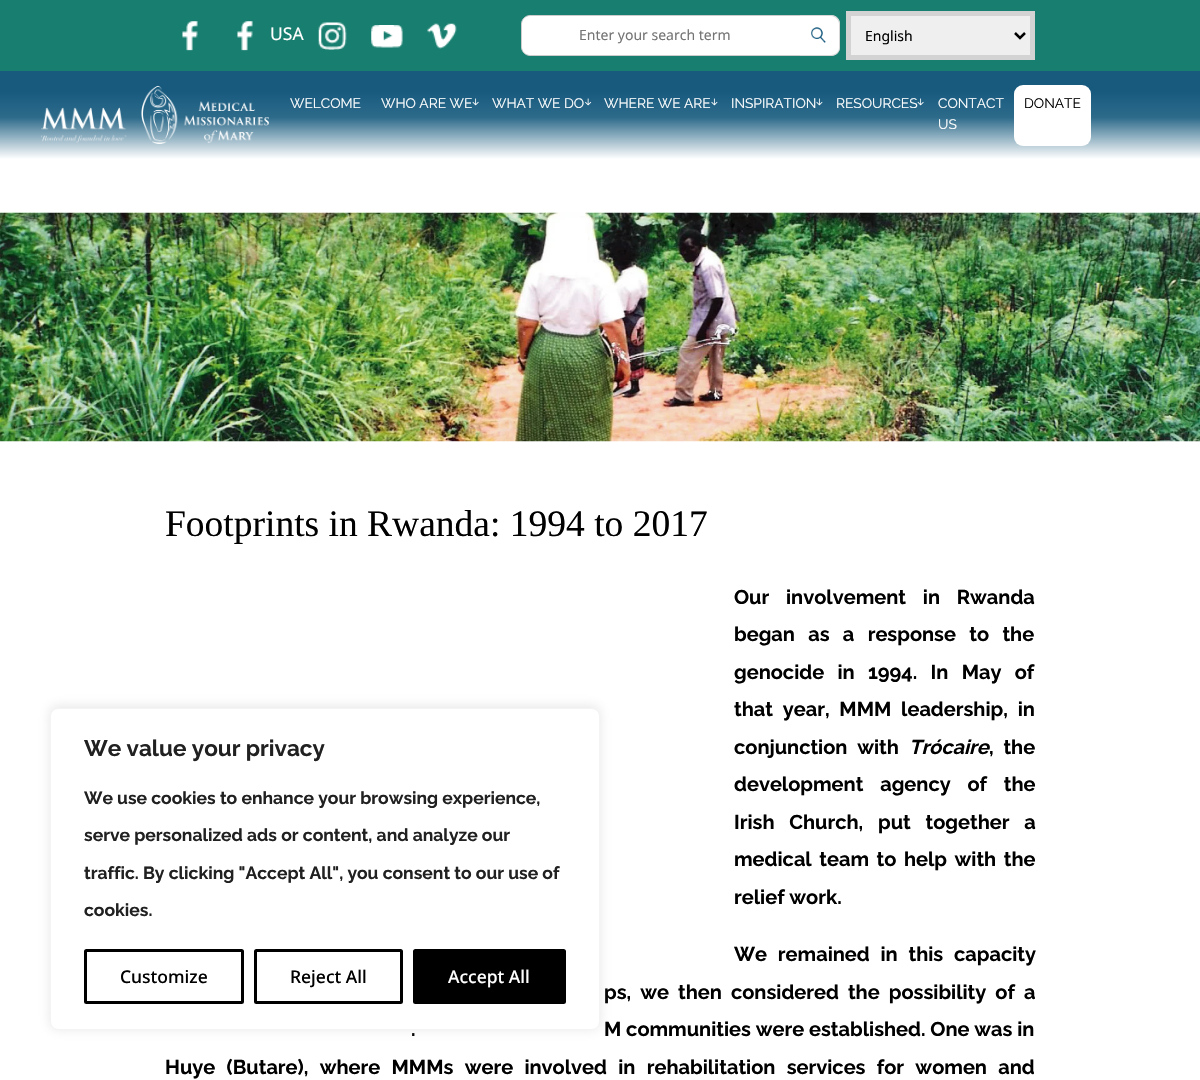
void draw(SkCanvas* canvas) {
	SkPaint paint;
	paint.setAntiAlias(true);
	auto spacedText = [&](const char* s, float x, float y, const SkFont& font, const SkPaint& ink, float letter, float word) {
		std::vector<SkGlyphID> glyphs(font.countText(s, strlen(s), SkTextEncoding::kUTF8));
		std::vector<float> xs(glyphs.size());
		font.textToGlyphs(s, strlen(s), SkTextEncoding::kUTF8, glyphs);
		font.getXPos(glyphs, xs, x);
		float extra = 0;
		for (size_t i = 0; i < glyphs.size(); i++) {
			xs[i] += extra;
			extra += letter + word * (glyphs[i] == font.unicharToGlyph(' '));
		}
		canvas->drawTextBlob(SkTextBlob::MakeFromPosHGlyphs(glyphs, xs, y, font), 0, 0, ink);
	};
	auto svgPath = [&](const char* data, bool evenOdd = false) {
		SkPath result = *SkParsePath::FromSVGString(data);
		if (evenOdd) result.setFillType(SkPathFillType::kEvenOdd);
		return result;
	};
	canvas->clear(0xffffffff);
	paint.setColor(0xff187e6f);
	canvas->drawRect(SkRect::MakeXYWH(0, 0, 1200, 71), paint);
	canvas->drawImageRect(SkImages::DeferredFromEncodedData(SkData::MakeFromFileName("img1.png")), SkRect::MakeXYWH(182, 21, 16, 30), SkSamplingOptions());
	canvas->drawImageRect(SkImages::DeferredFromEncodedData(SkData::MakeFromFileName("img1.png")), SkRect::MakeXYWH(237, 21, 16, 30), SkSamplingOptions());
	SkFont f1(fontMgr->matchFamilyStyle("Noto Sans", SkFontStyle::Normal()), 17.5);
	f1.setSubpixel(true);
	paint.setColor(0xffffffff);
	canvas->drawString("USA", 270, 40, f1, paint);
	canvas->drawImageRect(SkImages::DeferredFromEncodedData(SkData::MakeFromFileName("img2.png")), SkRect::MakeXYWH(318, 22, 29, 28), SkSamplingOptions());
	canvas->drawImageRect(SkImages::DeferredFromEncodedData(SkData::MakeFromFileName("img3.png")), SkRect::MakeXYWH(371, 25, 32, 23), SkSamplingOptions());
	canvas->drawImageRect(SkImages::DeferredFromEncodedData(SkData::MakeFromFileName("img4.png")), SkRect::MakeXYWH(427, 23, 30, 26), SkSamplingOptions());
	canvas->drawPath(svgPath("M530 15.5H802.5V55.5H530C525.5 55.5 521.5 51.5 521.5 47V24C521.5 19.5 525.5 15.5 530 15.5Z"), paint);
	paint.setStroke(true);
	paint.setStrokeWidth(1);
	paint.setColor(0xffcccccc);
	canvas->drawPath(svgPath("M530 15.5H802.5V55.5H530C525.5 55.5 521.5 51.5 521.5 47V24C521.5 19.5 525.5 15.5 530 15.5Z"), paint);
	SkFont f2(fontMgr->matchFamilyStyle("Noto Sans", SkFontStyle::Normal()), 14);
	f2.setSubpixel(true);
	paint.setStroke(false);
	paint.setColor(0xff757575);
	canvas->drawString("Enter your search term", 579, 40, f2, paint);
	paint.setColor(0xffffffff);
	canvas->drawPath(svgPath("M800 15H831C836 15 840 19 840 24V47C840 52 836 56 831 56H800Z"), paint);
	paint.setColor(0xcccccccc);
	canvas->drawPath(svgPath("M800 15H831C836 15 840 19 840 24V48C840 52 836 56 831 56H800ZM800 16H831C835 16 839 20 839 24V48C839 52 835 55 831 55H800Z", true), paint);
	canvas->drawImageRect(SkImages::DeferredFromEncodedData(SkData::MakeFromFileName("img5.png")), SkRect::MakeXYWH(811, 27, 15, 16), SkSamplingOptions());
	paint.setColor(0xffefefef);
	canvas->drawRect(SkRect::MakeXYWH(848.5, 13.5, 184, 44), paint);
	paint.setStroke(true);
	paint.setStrokeWidth(5);
	paint.setColor(0xffd3d3d3);
	canvas->drawRect(SkRect::MakeXYWH(848.5, 13.5, 184, 44), paint);
	paint.setStrokeWidth(2.5);
	paint.setColor(0xff000000);
	canvas->drawPath(svgPath("M1015 33L1020 38L1025 33"), paint);
	paint.setStroke(false);
	canvas->drawString("English", 865, 41, f2, paint);
	{
		const SkColor colors[] = {0xff175a7e, 0xff2e6b8b, 0xffffffff};
		const float stops[] = {0.23, 0.53, 1};
		const SkPoint ends[] = {{600, 71}, {600, 159}};
		paint.setShader(SkGradientShader::MakeLinear(ends, colors, stops, 3, SkTileMode::kClamp));
		paint.setAlpha(255);
	}
	canvas->drawRect(SkRect::MakeXYWH(0, 71, 1200, 88), paint);
	canvas->drawImageRect(SkImages::DeferredFromEncodedData(SkData::MakeFromFileName("img6.png")), SkRect::MakeXYWH(41, 85, 228, 59), SkSamplingOptions());
	SkFont f3(fontMgr->matchFamilyStyle("Raleway", SkFontStyle::Normal()), 13.75);
	f3.setSubpixel(true);
	paint.setShader(nullptr);
	paint.setColor(0xffffffff);
	canvas->drawString("WELCOME", 290, 108, f3, paint);
	canvas->drawString("WHO ARE WE", 381, 108, f3, paint);
	canvas->drawImageRect(SkImages::DeferredFromEncodedData(SkData::MakeFromFileName("img7.png")), SkRect::MakeXYWH(472, 98, 7, 8), SkSamplingOptions());
	canvas->drawString("WHAT WE DO", 492, 108, f3, paint);
	canvas->drawImageRect(SkImages::DeferredFromEncodedData(SkData::MakeFromFileName("img8.png")), SkRect::MakeXYWH(585, 98, 7, 8), SkSamplingOptions());
	canvas->drawString("WHERE WE ARE", 604, 108, f3, paint);
	canvas->drawImageRect(SkImages::DeferredFromEncodedData(SkData::MakeFromFileName("img9.png")), SkRect::MakeXYWH(711, 98, 7, 8), SkSamplingOptions());
	canvas->drawString("INSPIRATION", 731, 108, f3, paint);
	canvas->drawImageRect(SkImages::DeferredFromEncodedData(SkData::MakeFromFileName("img9.png")), SkRect::MakeXYWH(816, 98, 7, 8), SkSamplingOptions());
	canvas->drawString("RESOURCES", 836, 108, f3, paint);
	canvas->drawImageRect(SkImages::DeferredFromEncodedData(SkData::MakeFromFileName("img10.png")), SkRect::MakeXYWH(917, 98, 7, 8), SkSamplingOptions());
	canvas->drawString("CONTACT", 938, 108, f3, paint);
	canvas->drawString("US", 938, 129, f3, paint);
	canvas->drawRoundRect(SkRect::MakeXYWH(1014, 85, 77, 61), 9, 9, paint);
	paint.setColor(0xff000000);
	canvas->drawString("DONATE", 1024, 108, f3, paint);
	canvas->drawImageRect(SkImages::DeferredFromEncodedData(SkData::MakeFromFileName("img11.png")), SkRect::MakeXYWH(0, 212, 1200, 230), SkSamplingOptions());
	SkFont f4(fontMgr->matchFamilyStyle("Liberation Serif", SkFontStyle::Normal()), 37.5);
	f4.setSubpixel(true);
	canvas->drawString("Footprints in Rwanda: 1994 to 2017", 165, 536, f4, paint);
	SkFont f5(fontMgr->matchFamilyStyle("Raleway", SkFontStyle::Bold()), 20);
	f5.setSubpixel(true);
	spacedText("Our involvement in Rwanda", 734, 604, f5, paint, 0, 12);
	spacedText("began as a response to the", 734, 641, f5, paint, 0, 8.5);
	spacedText("genocide in 1994. In May of", 734, 679, f5, paint, 0, 8.5);
	spacedText("that year, MMM leadership, in", 734, 716, f5, paint, 0, 5);
	spacedText("conjunction with", 734, 754, f5, paint, 0, 5);
	SkFont f6(fontMgr->matchFamilyStyle("Raleway", SkFontStyle::BoldItalic()), 20);
	f6.setSubpixel(true);
	canvas->drawString("Trócaire", 909, 754, f6, paint);
	spacedText(", the", 989, 754, f5, paint, 0, 5);
	spacedText("development agency of the", 734, 791, f5, paint, 0, 12);
	spacedText("Irish Church, put together a", 734, 829, f5, paint, 0, 10);
	spacedText("medical team to help with the", 734, 866, f5, paint, 0, 2.75);
	canvas->drawString("relief work.", 734, 904, f5, paint);
	spacedText("We remained in this capacity", 734, 961, f5, paint, 0, 6);
	spacedText("ps, we then considered the possibility of a", 604, 999, f5, paint, 0, 4.25);
	canvas->drawString(".", 411, 1036, f5, paint);
	canvas->drawString("M communities were established. One was in", 604, 1036, f5, paint);
	spacedText("Huye (Butare), where MMMs were involved in rehabilitation services for women and", 165, 1074, f5, paint, 0, 6.5);
	paint.setColor(0x4dacabab);
	paint.setMaskFilter(SkMaskFilter::MakeBlur(kNormal_SkBlurStyle, 6));
	canvas->drawRoundRect(SkRect::MakeXYWH(50, 706, 550, 323), 8, 8, paint);
	paint.setMaskFilter(nullptr);
	paint.setColor(0xffffffff);
	canvas->drawRoundRect(SkRect::MakeXYWH(50.5, 708.5, 549, 321), 7.5, 7.5, paint);
	paint.setStroke(true);
	paint.setStrokeWidth(1);
	paint.setColor(0xfff4f4f4);
	canvas->drawRoundRect(SkRect::MakeXYWH(50.5, 708.5, 549, 321), 7.5, 7.5, paint);
	SkFont f7(fontMgr->matchFamilyStyle("Raleway", SkFontStyle::Bold()), 22.5);
	f7.setSubpixel(true);
	paint.setStroke(false);
	paint.setColor(0xff212121);
	canvas->drawString("We value your privacy", 84, 756, f7, paint);
	SkFont f8(fontMgr->matchFamilyStyle("Raleway", SkFontStyle::Bold()), 17.5);
	f8.setSubpixel(true);
	canvas->drawString("We use cookies to enhance your browsing experience,", 84, 804, f8, paint);
	canvas->drawString("serve personalized ads or content, and analyze our", 84, 841, f8, paint);
	canvas->drawString("traffic. By clicking \"Accept All\", you consent to our use of", 84, 879, f8, paint);
	canvas->drawString("cookies.", 84, 916, f8, paint);
	paint.setStroke(true);
	paint.setStrokeWidth(3);
	paint.setColor(0xff000000);
	canvas->drawRoundRect(SkRect::MakeXYWH(85.5, 950.5, 157, 52), 1, 1, paint);
	SkFont f9(fontMgr->matchFamilyStyle("Noto Sans", SkFontStyle(500, SkFontStyle::kNormal_Width, SkFontStyle::kUpright_Slant)), 17.5);
	f9.setSubpixel(true);
	paint.setStroke(false);
	canvas->drawString("Customize", 120, 983, f9, paint);
	paint.setStroke(true);
	canvas->drawRoundRect(SkRect::MakeXYWH(255.5, 950.5, 146, 52), 1, 1, paint);
	paint.setStroke(false);
	canvas->drawString("Reject All", 290, 983, f9, paint);
	canvas->drawRoundRect(SkRect::MakeXYWH(414.5, 950.5, 150, 52), 1, 1, paint);
	paint.setStroke(true);
	canvas->drawRoundRect(SkRect::MakeXYWH(414.5, 950.5, 150, 52), 1, 1, paint);
	paint.setStroke(false);
	paint.setColor(0xffffffff);
	canvas->drawString("Accept All", 448, 983, f9, paint);
}
